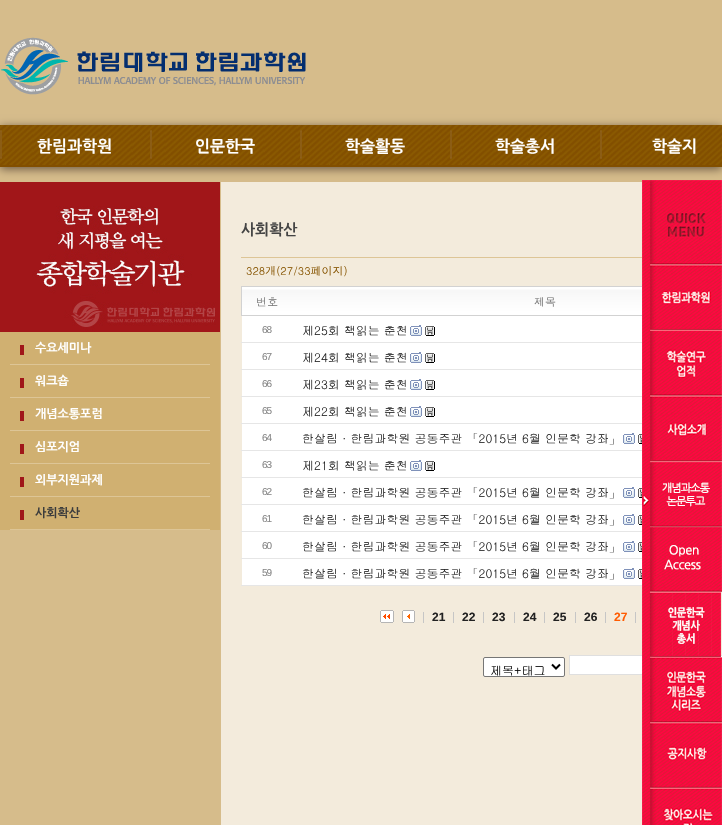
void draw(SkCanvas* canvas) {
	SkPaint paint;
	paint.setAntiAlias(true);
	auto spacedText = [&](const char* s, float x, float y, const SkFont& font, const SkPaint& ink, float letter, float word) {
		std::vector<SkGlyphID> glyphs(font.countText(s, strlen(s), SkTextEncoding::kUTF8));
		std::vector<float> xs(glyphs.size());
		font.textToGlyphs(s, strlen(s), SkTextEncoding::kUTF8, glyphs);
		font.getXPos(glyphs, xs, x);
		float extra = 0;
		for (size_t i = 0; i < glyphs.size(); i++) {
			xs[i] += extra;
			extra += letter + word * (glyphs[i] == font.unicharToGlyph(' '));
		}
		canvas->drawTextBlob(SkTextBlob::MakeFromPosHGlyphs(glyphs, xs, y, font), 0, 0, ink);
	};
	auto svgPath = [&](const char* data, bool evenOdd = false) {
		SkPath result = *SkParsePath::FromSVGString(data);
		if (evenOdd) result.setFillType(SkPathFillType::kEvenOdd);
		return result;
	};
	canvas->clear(0xffd6bc8b);
	canvas->drawImageRect(SkImages::DeferredFromEncodedData(SkData::MakeFromFileName("img1.png")), SkRect::MakeXYWH(1, 37, 305, 58), SkSamplingOptions());
	paint.setColor(0xff6a5742);
	paint.setMaskFilter(SkMaskFilter::MakeBlur(kNormal_SkBlurStyle, 4.5));
	canvas->drawRect(SkRect::MakeXYWH(0, 127, 722, 42), paint);
	paint.setMaskFilter(nullptr);
	canvas->drawImageRect(SkImages::DeferredFromEncodedData(SkData::MakeFromFileName("img2.png")), SkRect::MakeXYWH(0, 125, 722, 40), SkSamplingOptions());
	paint.setColor(0xff824f00);
	canvas->drawRect(SkRect::MakeXYWH(0, 165, 722, 2), paint);
	canvas->drawImageRect(SkImages::DeferredFromEncodedData(SkData::MakeFromFileName("img3.png")), SkRect::MakeXYWH(0, 130, 2, 29), SkSamplingOptions());
	SkFont f1(fontMgr->matchFamilyStyle("NanumGothic", SkFontStyle::Bold()), 16);
	f1.setSubpixel(true);
	paint.setColor(0xffffffff);
	canvas->drawString("한림과학원", 37, 152, f1, paint);
	canvas->drawImageRect(SkImages::DeferredFromEncodedData(SkData::MakeFromFileName("img3.png")), SkRect::MakeXYWH(150, 130, 2, 29), SkSamplingOptions());
	canvas->drawString("인문한국", 195, 152, f1, paint);
	canvas->drawImageRect(SkImages::DeferredFromEncodedData(SkData::MakeFromFileName("img3.png")), SkRect::MakeXYWH(300, 130, 2, 29), SkSamplingOptions());
	canvas->drawString("학술활동", 345, 152, f1, paint);
	canvas->drawImageRect(SkImages::DeferredFromEncodedData(SkData::MakeFromFileName("img3.png")), SkRect::MakeXYWH(450, 130, 2, 29), SkSamplingOptions());
	canvas->drawString("학술총서", 495, 152, f1, paint);
	canvas->drawImageRect(SkImages::DeferredFromEncodedData(SkData::MakeFromFileName("img3.png")), SkRect::MakeXYWH(600, 130, 2, 29), SkSamplingOptions());
	canvas->drawString("학술지", 652, 152, f1, paint);
	canvas->drawImageRect(SkImages::DeferredFromEncodedData(SkData::MakeFromFileName("img4.png")), SkRect::MakeXYWH(0, 182, 220, 150), SkSamplingOptions());
	paint.setColor(0xffd0b071);
	canvas->drawRect(SkRect::MakeXYWH(0, 332, 220, 198), paint);
	paint.setColor(0xffa01619);
	canvas->drawRect(SkRect::MakeXYWH(20, 345, 4, 10), paint);
	paint.setColor(0xffddc596);
	canvas->drawRect(SkRect::MakeXYWH(10, 364, 200, 1), paint);
	SkFont f2(fontMgr->matchFamilyStyle("NanumGothic", SkFontStyle::Bold()), 12);
	f2.setSubpixel(true);
	paint.setColor(0xffffffff);
	canvas->drawString("수요세미나", 35, 352, f2, paint);
	paint.setColor(0xffa01619);
	canvas->drawRect(SkRect::MakeXYWH(20, 378, 4, 10), paint);
	paint.setColor(0xffddc596);
	canvas->drawRect(SkRect::MakeXYWH(10, 397, 200, 1), paint);
	paint.setColor(0xffffffff);
	canvas->drawString("워크숍", 35, 385, f2, paint);
	paint.setColor(0xffa01619);
	canvas->drawRect(SkRect::MakeXYWH(20, 411, 4, 10), paint);
	paint.setColor(0xffddc596);
	canvas->drawRect(SkRect::MakeXYWH(10, 430, 200, 1), paint);
	paint.setColor(0xffffffff);
	canvas->drawString("개념소통포럼", 35, 418, f2, paint);
	paint.setColor(0xffa01619);
	canvas->drawRect(SkRect::MakeXYWH(20, 444, 4, 10), paint);
	paint.setColor(0xffddc596);
	canvas->drawRect(SkRect::MakeXYWH(10, 463, 200, 1), paint);
	paint.setColor(0xffffffff);
	canvas->drawString("심포지엄", 35, 451, f2, paint);
	paint.setColor(0xffa01619);
	canvas->drawRect(SkRect::MakeXYWH(20, 477, 4, 10), paint);
	paint.setColor(0xffddc596);
	canvas->drawRect(SkRect::MakeXYWH(10, 496, 200, 1), paint);
	paint.setColor(0xffffffff);
	canvas->drawString("외부지원과제", 35, 484, f2, paint);
	paint.setColor(0xffa01619);
	canvas->drawRect(SkRect::MakeXYWH(20, 510, 4, 10), paint);
	paint.setColor(0xffddc596);
	canvas->drawRect(SkRect::MakeXYWH(10, 529, 200, 1), paint);
	paint.setColor(0xff3c3c3c);
	canvas->drawString("사회확산", 35, 517, f2, paint);
	paint.setColor(0xfff3ebdc);
	canvas->drawRect(SkRect::MakeXYWH(221, 182, 501, 643), paint);
	paint.setColor(0xffddc596);
	canvas->drawRect(SkRect::MakeXYWH(241, 257, 401, 1), paint);
	SkFont f3(fontMgr->matchFamilyStyle("NanumGothic", SkFontStyle::Bold()), 15);
	f3.setSubpixel(true);
	paint.setColor(0xff444444);
	canvas->drawString("사회확산", 241, 235, f3, paint);
	SkFont f4(fontMgr->matchFamilyStyle("Dotum", SkFontStyle::Normal()), 11);
	f4.setSubpixel(true);
	paint.setColor(0xff865400);
	canvas->drawString("328개(27/33페이지)", 246, 275, f4, paint);
	canvas->drawImageRect(SkImages::DeferredFromEncodedData(SkData::MakeFromFileName("img5.png")), SkRect::MakeXYWH(242, 287, 50, 28), SkSamplingOptions());
	paint.setColor(0xffd2d2d2);
	canvas->drawRect(SkRect::MakeXYWH(241, 286, 401, 1), paint);
	canvas->drawRect(SkRect::MakeXYWH(241, 315, 401, 1), paint);
	canvas->drawRect(SkRect::MakeXYWH(241, 286, 1, 30), paint);
	paint.setColor(0xff787878);
	canvas->drawString("번호", 256, 306, f4, paint);
	canvas->drawImageRect(SkImages::DeferredFromEncodedData(SkData::MakeFromFileName("img6.png")), SkRect::MakeXYWH(292, 287, 350, 28), SkSamplingOptions());
	canvas->drawString("제목", 534, 306, f4, paint);
	paint.setColor(0xffffffff);
	canvas->drawRect(SkRect::MakeXYWH(242, 316, 400, 26), paint);
	SkFont f5(fontMgr->matchFamilyStyle("Liberation Sans", SkFontStyle::Normal()), 10);
	f5.setSubpixel(true);
	paint.setColor(0xff888888);
	spacedText("68", 262, 333, f5, paint, -1, 0);
	paint.setColor(0xffe6e6e6);
	canvas->drawRect(SkRect::MakeXYWH(241, 342, 401, 1), paint);
	SkFont f6(fontMgr->matchFamilyStyle("Gulim", SkFontStyle::Normal()), 12);
	f6.setSubpixel(true);
	paint.setColor(0xff222222);
	canvas->drawString("제25회 책읽는 춘천", 302, 335, f6, paint);
	canvas->drawImageRect(SkImages::DeferredFromEncodedData(SkData::MakeFromFileName("img7.png")), SkRect::MakeXYWH(410, 325, 12, 11), SkSamplingOptions());
	canvas->drawImageRect(SkImages::DeferredFromEncodedData(SkData::MakeFromFileName("img8.png")), SkRect::MakeXYWH(425, 326, 10, 10), SkSamplingOptions());
	paint.setColor(0xffffffff);
	canvas->drawRect(SkRect::MakeXYWH(242, 343, 400, 26), paint);
	paint.setColor(0xff888888);
	spacedText("67", 262, 360, f5, paint, -1, 0);
	paint.setColor(0xffe6e6e6);
	canvas->drawRect(SkRect::MakeXYWH(241, 369, 401, 1), paint);
	paint.setColor(0xff222222);
	canvas->drawString("제24회 책읽는 춘천", 302, 362, f6, paint);
	canvas->drawImageRect(SkImages::DeferredFromEncodedData(SkData::MakeFromFileName("img7.png")), SkRect::MakeXYWH(410, 352, 12, 11), SkSamplingOptions());
	canvas->drawImageRect(SkImages::DeferredFromEncodedData(SkData::MakeFromFileName("img8.png")), SkRect::MakeXYWH(425, 353, 10, 10), SkSamplingOptions());
	paint.setColor(0xffffffff);
	canvas->drawRect(SkRect::MakeXYWH(242, 370, 400, 26), paint);
	paint.setColor(0xff888888);
	spacedText("66", 262, 387, f5, paint, -1, 0);
	paint.setColor(0xffe6e6e6);
	canvas->drawRect(SkRect::MakeXYWH(241, 396, 401, 1), paint);
	paint.setColor(0xff222222);
	canvas->drawString("제23회 책읽는 춘천", 302, 389, f6, paint);
	canvas->drawImageRect(SkImages::DeferredFromEncodedData(SkData::MakeFromFileName("img7.png")), SkRect::MakeXYWH(410, 379, 12, 11), SkSamplingOptions());
	canvas->drawImageRect(SkImages::DeferredFromEncodedData(SkData::MakeFromFileName("img8.png")), SkRect::MakeXYWH(425, 380, 10, 10), SkSamplingOptions());
	paint.setColor(0xffffffff);
	canvas->drawRect(SkRect::MakeXYWH(242, 397, 400, 26), paint);
	paint.setColor(0xff888888);
	spacedText("65", 262, 414, f5, paint, -1, 0);
	paint.setColor(0xffe6e6e6);
	canvas->drawRect(SkRect::MakeXYWH(241, 423, 401, 1), paint);
	paint.setColor(0xff222222);
	canvas->drawString("제22회 책읽는 춘천", 302, 416, f6, paint);
	canvas->drawImageRect(SkImages::DeferredFromEncodedData(SkData::MakeFromFileName("img7.png")), SkRect::MakeXYWH(410, 406, 12, 11), SkSamplingOptions());
	canvas->drawImageRect(SkImages::DeferredFromEncodedData(SkData::MakeFromFileName("img8.png")), SkRect::MakeXYWH(425, 407, 10, 10), SkSamplingOptions());
	paint.setColor(0xffffffff);
	canvas->drawRect(SkRect::MakeXYWH(242, 424, 400, 26), paint);
	paint.setColor(0xff888888);
	spacedText("64", 262, 441, f5, paint, -1, 0);
	paint.setColor(0xffe6e6e6);
	canvas->drawRect(SkRect::MakeXYWH(241, 450, 401, 1), paint);
	paint.setColor(0xff222222);
	canvas->drawString("한살림 · 한림과학원 공동주관 「2015년 6월 인문학 강좌」", 302, 443, f6, paint);
	canvas->drawImageRect(SkImages::DeferredFromEncodedData(SkData::MakeFromFileName("img7.png")), SkRect::MakeXYWH(623, 433, 12, 11), SkSamplingOptions());
	canvas->drawImageRect(SkImages::DeferredFromEncodedData(SkData::MakeFromFileName("img9.png")), SkRect::MakeXYWH(638, 434, 4, 10), SkSamplingOptions());
	paint.setColor(0xffffffff);
	canvas->drawRect(SkRect::MakeXYWH(242, 451, 400, 26), paint);
	paint.setColor(0xff888888);
	spacedText("63", 262, 468, f5, paint, -1, 0);
	paint.setColor(0xffe6e6e6);
	canvas->drawRect(SkRect::MakeXYWH(241, 477, 401, 1), paint);
	paint.setColor(0xff222222);
	canvas->drawString("제21회 책읽는 춘천", 302, 470, f6, paint);
	canvas->drawImageRect(SkImages::DeferredFromEncodedData(SkData::MakeFromFileName("img7.png")), SkRect::MakeXYWH(410, 460, 12, 11), SkSamplingOptions());
	canvas->drawImageRect(SkImages::DeferredFromEncodedData(SkData::MakeFromFileName("img8.png")), SkRect::MakeXYWH(425, 461, 10, 10), SkSamplingOptions());
	paint.setColor(0xffffffff);
	canvas->drawRect(SkRect::MakeXYWH(242, 478, 400, 26), paint);
	paint.setColor(0xff888888);
	spacedText("62", 262, 495, f5, paint, -1, 0);
	paint.setColor(0xffe6e6e6);
	canvas->drawRect(SkRect::MakeXYWH(241, 504, 401, 1), paint);
	paint.setColor(0xff222222);
	canvas->drawString("한살림 · 한림과학원 공동주관 「2015년 6월 인문학 강좌」", 302, 497, f6, paint);
	canvas->drawImageRect(SkImages::DeferredFromEncodedData(SkData::MakeFromFileName("img7.png")), SkRect::MakeXYWH(623, 487, 12, 11), SkSamplingOptions());
	canvas->drawImageRect(SkImages::DeferredFromEncodedData(SkData::MakeFromFileName("img9.png")), SkRect::MakeXYWH(638, 488, 4, 10), SkSamplingOptions());
	paint.setColor(0xffffffff);
	canvas->drawRect(SkRect::MakeXYWH(242, 505, 400, 26), paint);
	paint.setColor(0xff888888);
	spacedText("61", 262, 522, f5, paint, -1, 0);
	paint.setColor(0xffe6e6e6);
	canvas->drawRect(SkRect::MakeXYWH(241, 531, 401, 1), paint);
	paint.setColor(0xff222222);
	canvas->drawString("한살림 · 한림과학원 공동주관 「2015년 6월 인문학 강좌」", 302, 524, f6, paint);
	canvas->drawImageRect(SkImages::DeferredFromEncodedData(SkData::MakeFromFileName("img7.png")), SkRect::MakeXYWH(623, 514, 12, 11), SkSamplingOptions());
	canvas->drawImageRect(SkImages::DeferredFromEncodedData(SkData::MakeFromFileName("img9.png")), SkRect::MakeXYWH(638, 515, 4, 10), SkSamplingOptions());
	paint.setColor(0xffffffff);
	canvas->drawRect(SkRect::MakeXYWH(242, 532, 400, 26), paint);
	paint.setColor(0xff888888);
	spacedText("60", 262, 549, f5, paint, -1, 0);
	paint.setColor(0xffe6e6e6);
	canvas->drawRect(SkRect::MakeXYWH(241, 558, 401, 1), paint);
	paint.setColor(0xff222222);
	canvas->drawString("한살림 · 한림과학원 공동주관 「2015년 6월 인문학 강좌」", 302, 551, f6, paint);
	canvas->drawImageRect(SkImages::DeferredFromEncodedData(SkData::MakeFromFileName("img7.png")), SkRect::MakeXYWH(623, 541, 12, 11), SkSamplingOptions());
	canvas->drawImageRect(SkImages::DeferredFromEncodedData(SkData::MakeFromFileName("img9.png")), SkRect::MakeXYWH(638, 542, 4, 10), SkSamplingOptions());
	paint.setColor(0xffffffff);
	canvas->drawRect(SkRect::MakeXYWH(242, 559, 400, 26), paint);
	paint.setColor(0xff888888);
	spacedText("59", 262, 576, f5, paint, -1, 0);
	paint.setColor(0xffe6e6e6);
	canvas->drawRect(SkRect::MakeXYWH(241, 585, 401, 1), paint);
	paint.setColor(0xff222222);
	canvas->drawString("한살림 · 한림과학원 공동주관 「2015년 6월 인문학 강좌」", 302, 578, f6, paint);
	canvas->drawImageRect(SkImages::DeferredFromEncodedData(SkData::MakeFromFileName("img7.png")), SkRect::MakeXYWH(623, 568, 12, 11), SkSamplingOptions());
	canvas->drawImageRect(SkImages::DeferredFromEncodedData(SkData::MakeFromFileName("img9.png")), SkRect::MakeXYWH(638, 569, 4, 10), SkSamplingOptions());
	canvas->drawImageRect(SkImages::DeferredFromEncodedData(SkData::MakeFromFileName("img10.png")), SkRect::MakeXYWH(380, 610, 14, 13), SkSamplingOptions());
	canvas->drawImageRect(SkImages::DeferredFromEncodedData(SkData::MakeFromFileName("img11.png")), SkRect::MakeXYWH(402, 610, 13, 13), SkSamplingOptions());
	paint.setColor(0xffc6c6c6);
	canvas->drawRect(SkRect::MakeXYWH(423, 612, 1, 11), paint);
	SkFont f7(fontMgr->matchFamilyStyle("Liberation Sans", SkFontStyle::Bold()), 12);
	f7.setSubpixel(true);
	paint.setColor(0xff222222);
	canvas->drawString("21", 432, 621, f7, paint);
	paint.setColor(0xffc6c6c6);
	canvas->drawRect(SkRect::MakeXYWH(453, 612, 1, 11), paint);
	paint.setColor(0xff222222);
	canvas->drawString("22", 462, 621, f7, paint);
	paint.setColor(0xffc6c6c6);
	canvas->drawRect(SkRect::MakeXYWH(483, 612, 1, 11), paint);
	paint.setColor(0xff222222);
	canvas->drawString("23", 492, 621, f7, paint);
	paint.setColor(0xffc6c6c6);
	canvas->drawRect(SkRect::MakeXYWH(514, 612, 1, 11), paint);
	paint.setColor(0xff222222);
	canvas->drawString("24", 523, 621, f7, paint);
	paint.setColor(0xffc6c6c6);
	canvas->drawRect(SkRect::MakeXYWH(544, 612, 1, 11), paint);
	paint.setColor(0xff222222);
	canvas->drawString("25", 553, 621, f7, paint);
	paint.setColor(0xffc6c6c6);
	canvas->drawRect(SkRect::MakeXYWH(575, 612, 1, 11), paint);
	paint.setColor(0xff222222);
	canvas->drawString("26", 584, 621, f7, paint);
	paint.setColor(0xffc6c6c6);
	canvas->drawRect(SkRect::MakeXYWH(605, 612, 1, 11), paint);
	paint.setColor(0xffff5b01);
	canvas->drawString("27", 614, 621, f7, paint);
	paint.setColor(0xffc6c6c6);
	canvas->drawRect(SkRect::MakeXYWH(635, 612, 1, 11), paint);
	paint.setColor(0xffffffff);
	canvas->drawRoundRect(SkRect::MakeXYWH(483.5, 657.5, 81, 19), 1.5, 1.5, paint);
	paint.setStroke(true);
	paint.setStrokeWidth(1);
	paint.setColor(0xff767676);
	canvas->drawRoundRect(SkRect::MakeXYWH(483.5, 657.5, 81, 19), 1.5, 1.5, paint);
	paint.setStrokeWidth(2);
	paint.setColor(0xff000000);
	canvas->drawPath(svgPath("M552 664.5L556 668.5L560 664.5"), paint);
	paint.setStroke(false);
	canvas->drawString("제목+태그", 490, 675, f6, paint);
	paint.setColor(0xffffffff);
	canvas->drawRect(SkRect::MakeXYWH(569.5, 655.5, 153, 19), paint);
	paint.setStroke(true);
	paint.setStrokeWidth(1);
	paint.setColor(0xffdfdfdf);
	canvas->drawRect(SkRect::MakeXYWH(569.5, 655.5, 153, 19), paint);
	canvas->drawImageRect(SkImages::DeferredFromEncodedData(SkData::MakeFromFileName("img12.png")), SkRect::MakeXYWH(642, 180, 80, 85), SkSamplingOptions());
	canvas->drawImageRect(SkImages::DeferredFromEncodedData(SkData::MakeFromFileName("img13.png")), SkRect::MakeXYWH(642, 265, 80, 65), SkSamplingOptions());
	canvas->drawImageRect(SkImages::DeferredFromEncodedData(SkData::MakeFromFileName("img14.png")), SkRect::MakeXYWH(642, 330, 80, 66), SkSamplingOptions());
	canvas->drawImageRect(SkImages::DeferredFromEncodedData(SkData::MakeFromFileName("img15.png")), SkRect::MakeXYWH(642, 396, 80, 66), SkSamplingOptions());
	canvas->drawImageRect(SkImages::DeferredFromEncodedData(SkData::MakeFromFileName("img16.png")), SkRect::MakeXYWH(642, 462, 80, 65), SkSamplingOptions());
	canvas->drawImageRect(SkImages::DeferredFromEncodedData(SkData::MakeFromFileName("img17.png")), SkRect::MakeXYWH(642, 527, 80, 65), SkSamplingOptions());
	canvas->drawImageRect(SkImages::DeferredFromEncodedData(SkData::MakeFromFileName("img18.png")), SkRect::MakeXYWH(642, 592, 79, 65), SkSamplingOptions());
	canvas->drawImageRect(SkImages::DeferredFromEncodedData(SkData::MakeFromFileName("img19.png")), SkRect::MakeXYWH(642, 657, 80, 66), SkSamplingOptions());
	canvas->drawImageRect(SkImages::DeferredFromEncodedData(SkData::MakeFromFileName("img20.png")), SkRect::MakeXYWH(642, 723, 80, 65), SkSamplingOptions());
	canvas->drawImageRect(SkImages::DeferredFromEncodedData(SkData::MakeFromFileName("img21.png")), SkRect::MakeXYWH(642, 788, 80, 37), SkSamplingOptions());
}
